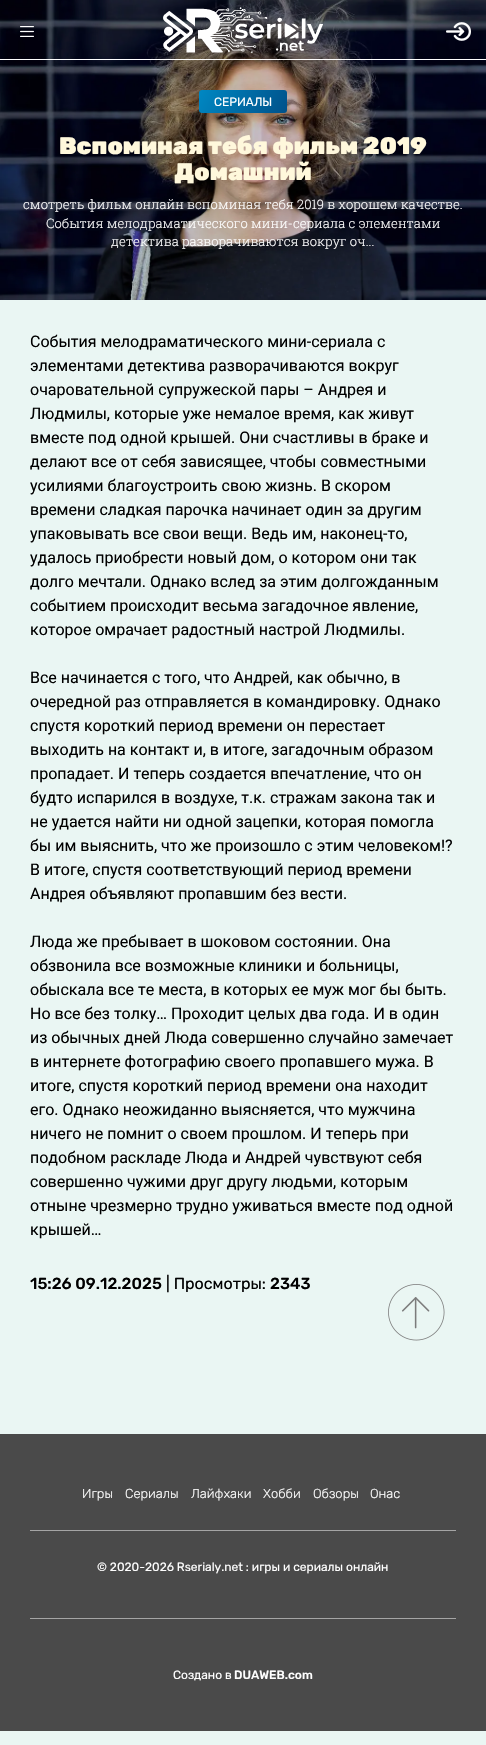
void draw(SkCanvas* canvas) {
	SkPaint paint;
	paint.setAntiAlias(true);
	canvas->clear(0xffeaf6f3);
	canvas->drawImageRect(SkImages::DeferredFromEncodedData(SkData::MakeFromFileName("img4.png")), SkRect::MakeXYWH(0, 0, 486, 300), SkSamplingOptions());
	paint.setColor(0x0d000000);
	canvas->drawRect(SkRect::MakeXYWH(0, 0, 486, 59), paint);
	paint.setColor(0xffffffff);
	canvas->drawRect(SkRect::MakeXYWH(0, 59, 486, 1), paint);
	canvas->drawImageRect(SkImages::DeferredFromEncodedData(SkData::MakeFromFileName("img1.png")), SkRect::MakeXYWH(20, 26, 14, 11), SkSamplingOptions());
	canvas->drawImageRect(SkImages::DeferredFromEncodedData(SkData::MakeFromFileName("img2.png")), SkRect::MakeXYWH(163, 7, 160, 46), SkSamplingOptions());
	canvas->drawImageRect(SkImages::DeferredFromEncodedData(SkData::MakeFromFileName("img3.png")), SkRect::MakeXYWH(446, 22, 25, 19), SkSamplingOptions());
	{
		const SkColor colors[] = {0xff00518a, 0xff0088c3};
		const float stops[] = {0, 1};
		const SkPoint ends[] = {{283, 122}, {203, 81}};
		paint.setShader(SkGradientShader::MakeLinear(ends, colors, stops, 2, SkTileMode::kClamp));
		paint.setAlpha(255);
	}
	canvas->drawRoundRect(SkRect::MakeXYWH(199, 90, 88, 23), 3, 3, paint);
	SkFont f1(fontMgr->matchFamilyStyle("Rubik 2", SkFontStyle(300, SkFontStyle::kNormal_Width, SkFontStyle::kUpright_Slant)), 12);
	f1.setSubpixel(true);
	paint.setShader(nullptr);
	paint.setColor(0xffffffff);
	canvas->drawString("СЕРИАЛЫ", 214, 106, f1, paint);
	SkFont f2(fontMgr->matchFamilyStyle("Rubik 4", SkFontStyle(300, SkFontStyle::kNormal_Width, SkFontStyle::kUpright_Slant)), 24);
	f2.setSubpixel(true);
	paint.setColor(0xfffff8dc);
	canvas->drawString("Вспоминая тебя фильм 2019", 59, 154, f2, paint);
	canvas->drawString("Домашний", 174, 180, f2, paint);
	SkFont f3(fontMgr->matchFamilyStyle("Roboto Slab", SkFontStyle(300, SkFontStyle::kNormal_Width, SkFontStyle::kUpright_Slant)), 13);
	f3.setSubpixel(true);
	paint.setColor(0xffffffff);
	canvas->drawString("смотреть фильм онлайн вспоминая тебя 2019 в хорошем качестве.", 23, 209, f3, paint);
	canvas->drawString("События мелодраматического мини-сериала с элементами", 46, 228, f3, paint);
	canvas->drawString("детектива разворачиваются вокруг оч...", 111, 246, f3, paint);
	SkFont f4(fontMgr->matchFamilyStyle("Roboto", SkFontStyle::Normal()), 16);
	f4.setSubpixel(true);
	paint.setColor(0xff000000);
	canvas->drawString("События мелодраматического мини-сериала с", 30, 347, f4, paint);
	canvas->drawString("элементами детектива разворачиваются вокруг", 30, 371, f4, paint);
	canvas->drawString("очаровательной супружеской пары – Андрея и", 30, 395, f4, paint);
	canvas->drawString("Людмилы, которые уже немалое время, как живут", 30, 419, f4, paint);
	canvas->drawString("вместе под одной крышей. Они счастливы в браке и", 30, 443, f4, paint);
	canvas->drawString("делают все от себя зависящее, чтобы совместными", 30, 467, f4, paint);
	canvas->drawString("усилиями благоустроить свою жизнь. В скором", 30, 491, f4, paint);
	canvas->drawString("времени сладкая парочка начинает один за другим", 30, 515, f4, paint);
	canvas->drawString("упаковывать все свои вещи. Ведь им, наконец-то,", 30, 539, f4, paint);
	canvas->drawString("удалось приобрести новый дом, о котором они так", 30, 563, f4, paint);
	canvas->drawString("долго мечтали. Однако вслед за этим долгожданным", 30, 587, f4, paint);
	canvas->drawString("событием происходит весьма загадочное явление,", 30, 611, f4, paint);
	canvas->drawString("которое омрачает радостный настрой Людмилы.", 30, 635, f4, paint);
	canvas->drawString("Все начинается с того, что Андрей, как обычно, в", 30, 683, f4, paint);
	canvas->drawString("очередной раз отправляется в командировку. Однако", 30, 707, f4, paint);
	canvas->drawString("спустя короткий период времени он перестает", 30, 731, f4, paint);
	canvas->drawString("выходить на контакт и, в итоге, загадочным образом", 30, 755, f4, paint);
	canvas->drawString("пропадает. И теперь создается впечатление, что он", 30, 779, f4, paint);
	canvas->drawString("будто испарился в воздухе, т.к. стражам закона так и", 30, 803, f4, paint);
	canvas->drawString("не удается найти ни одной зацепки, которая помогла", 30, 827, f4, paint);
	canvas->drawString("бы им выяснить, что же произошло с этим человеком!?", 30, 851, f4, paint);
	canvas->drawString("В итоге, спустя соответствующий период времени", 30, 875, f4, paint);
	canvas->drawString("Андрея объявляют пропавшим без вести.", 30, 899, f4, paint);
	canvas->drawString("Люда же пребывает в шоковом состоянии. Она", 30, 947, f4, paint);
	canvas->drawString("обзвонила все возможные клиники и больницы,", 30, 971, f4, paint);
	canvas->drawString("обыскала все те места, в которых ее муж мог бы быть.", 30, 995, f4, paint);
	canvas->drawString("Но все без толку… Проходит целых два года. И в один", 30, 1019, f4, paint);
	canvas->drawString("из обычных дней Люда совершенно случайно замечает", 30, 1043, f4, paint);
	canvas->drawString("в интернете фотографию своего пропавшего мужа. В", 30, 1067, f4, paint);
	canvas->drawString("итоге, спустя короткий период времени она находит", 30, 1091, f4, paint);
	canvas->drawString("его. Однако неожиданно выясняется, что мужчина", 30, 1115, f4, paint);
	canvas->drawString("ничего не помнит о своем прошлом. И теперь при", 30, 1139, f4, paint);
	canvas->drawString("подобном раскладе Люда и Андрей чувствуют себя", 30, 1163, f4, paint);
	canvas->drawString("совершенно чужими друг другу людьми, которым", 30, 1187, f4, paint);
	canvas->drawString("отныне чрезмерно трудно уживаться вместе под одной", 30, 1211, f4, paint);
	canvas->drawString("крышей…", 30, 1235, f4, paint);
	SkFont f5(fontMgr->matchFamilyStyle("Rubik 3", SkFontStyle(300, SkFontStyle::kNormal_Width, SkFontStyle::kUpright_Slant)), 16);
	f5.setSubpixel(true);
	canvas->drawString("15:26 09.12.2025", 30, 1289, f5, paint);
	SkFont f6(fontMgr->matchFamilyStyle("Rubik 2", SkFontStyle(300, SkFontStyle::kNormal_Width, SkFontStyle::kUpright_Slant)), 16);
	f6.setSubpixel(true);
	canvas->drawString("| Просмотры:", 166, 1289, f6, paint);
	canvas->drawString("2343", 270, 1289, f5, paint);
	canvas->drawImageRect(SkImages::DeferredFromEncodedData(SkData::MakeFromFileName("img5.png")), SkRect::MakeXYWH(388, 1284, 57, 57), SkSamplingOptions());
	paint.setColor(0xff4a4a4a);
	canvas->drawRect(SkRect::MakeXYWH(0, 1434, 486, 297), paint);
	paint.setColor(0xffa5a5a5);
	canvas->drawRect(SkRect::MakeXYWH(30, 1530, 426, 1), paint);
	SkFont f7(fontMgr->matchFamilyStyle("Rubik", SkFontStyle(300, SkFontStyle::kNormal_Width, SkFontStyle::kUpright_Slant)), 13);
	f7.setSubpixel(true);
	paint.setColor(0xffffffff);
	canvas->drawString("Игры", 82, 1498, f7, paint);
	canvas->drawString("Сериалы", 125, 1498, f7, paint);
	canvas->drawString("Лайфхаки", 191, 1498, f7, paint);
	canvas->drawString("Хобби", 263, 1498, f7, paint);
	canvas->drawString("Обзоры", 313, 1498, f7, paint);
	canvas->drawString("О нас", 370, 1498, f7, paint);
	paint.setColor(0xffa5a5a5);
	canvas->drawRect(SkRect::MakeXYWH(30, 1618, 426, 1), paint);
	paint.setColor(0xffffffff);
	canvas->drawString("© 2020-2026 Rserialy.net : игры и сериалы онлайн", 97, 1571, f1, paint);
	canvas->drawString("Создано в", 173, 1679, f1, paint);
	SkFont f8(fontMgr->matchFamilyStyle("Rubik 3", SkFontStyle(300, SkFontStyle::kNormal_Width, SkFontStyle::kUpright_Slant)), 12);
	f8.setSubpixel(true);
	canvas->drawString("DUAWEB.com", 234, 1679, f8, paint);
}
